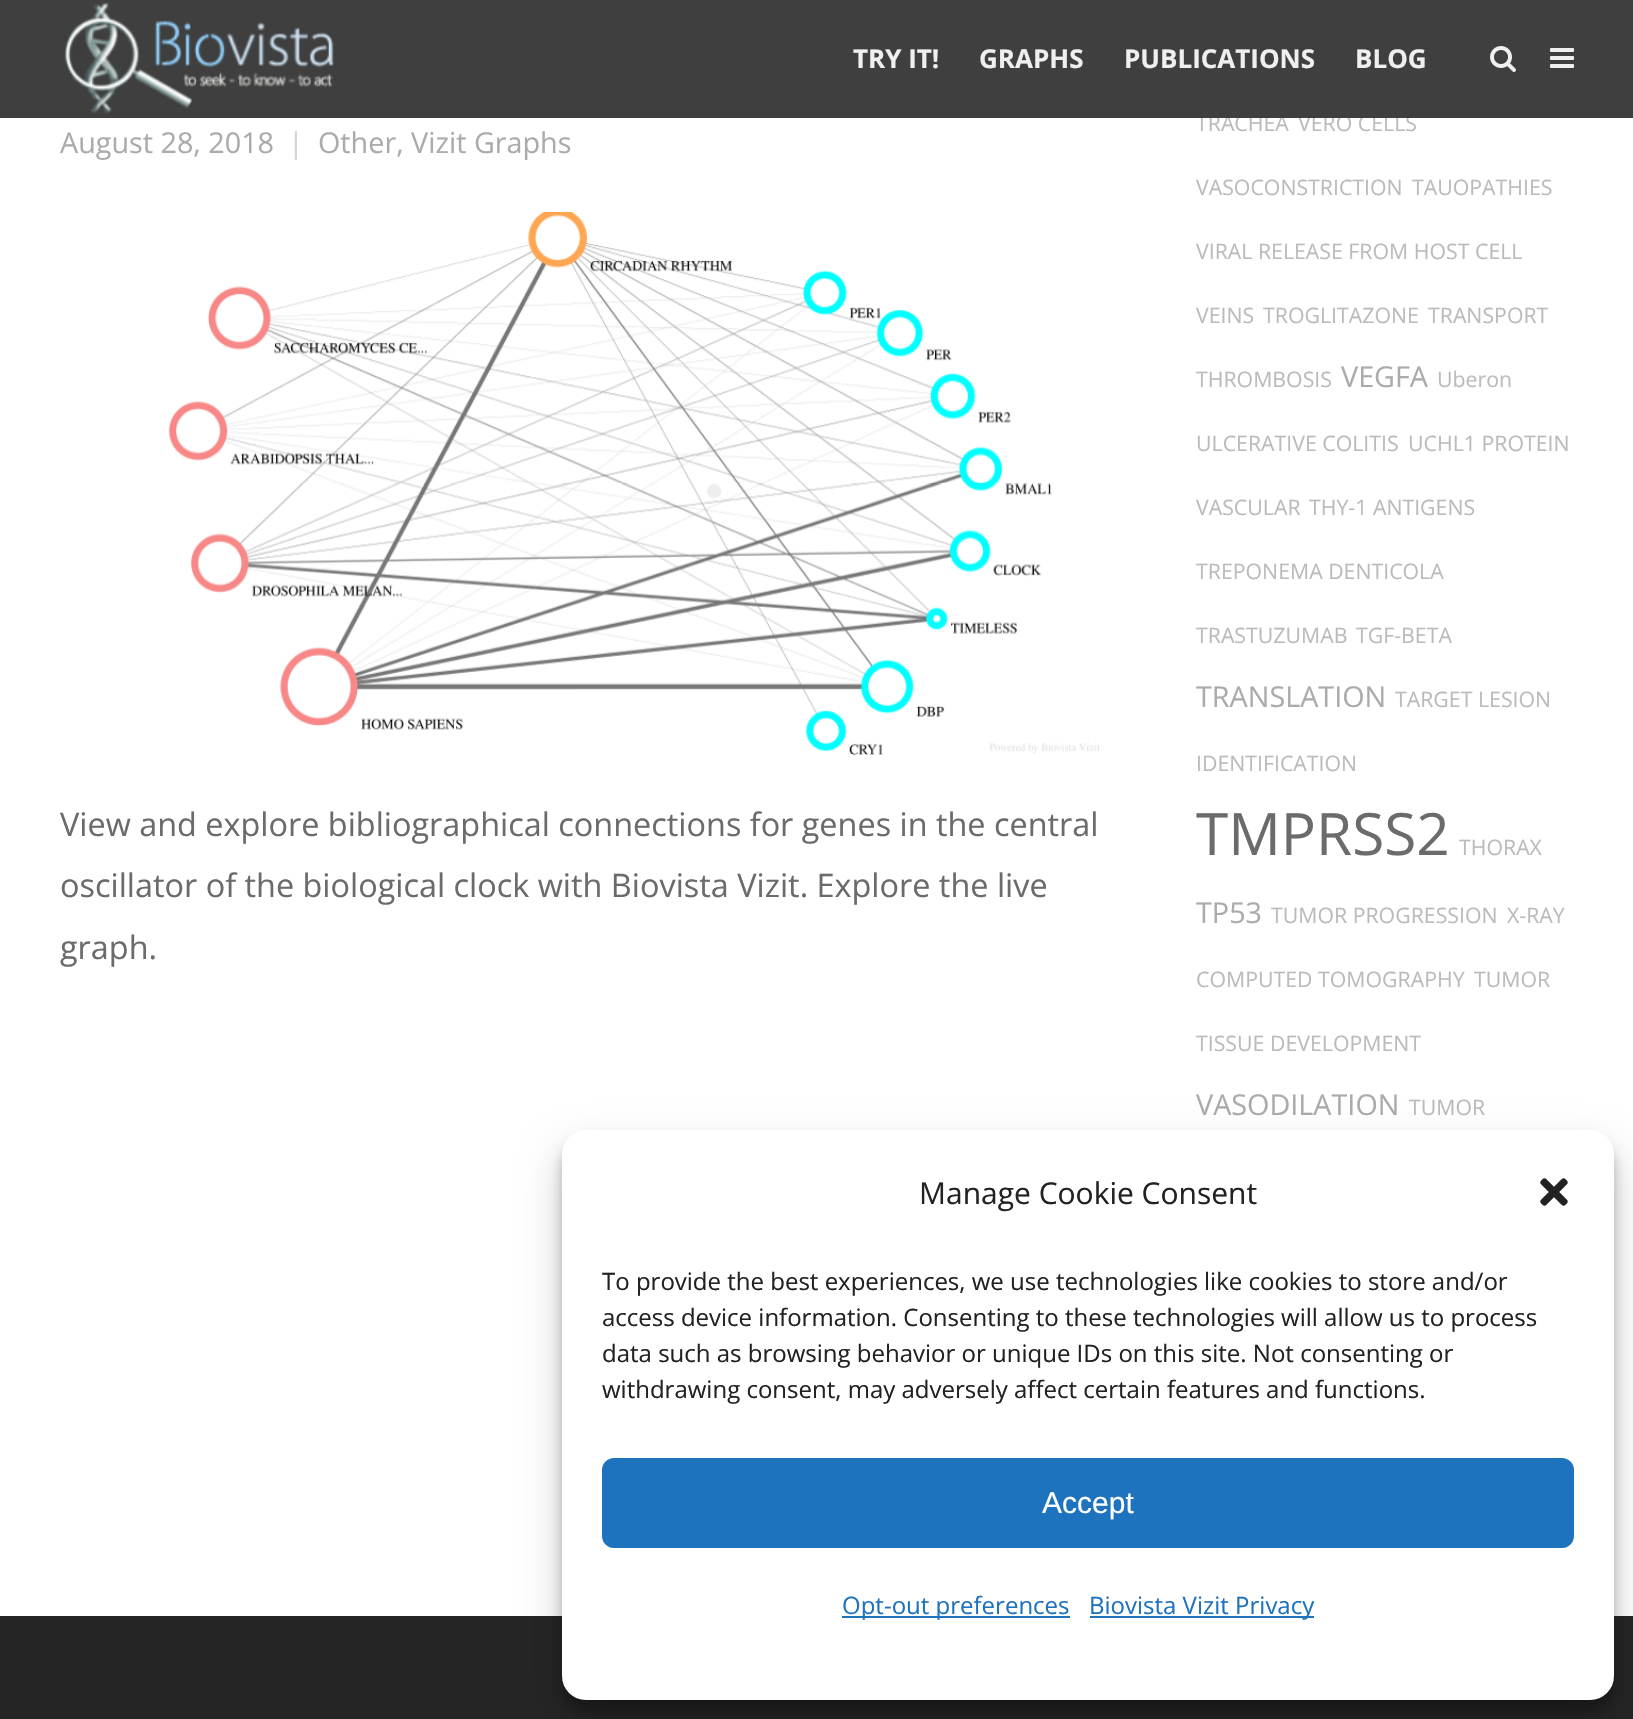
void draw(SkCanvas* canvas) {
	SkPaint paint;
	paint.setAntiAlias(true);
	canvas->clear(0xffffffff);
	SkFont f1(fontMgr->matchFamilyStyle("Open Sans", SkFontStyle::Normal()), 21.3);
	f1.setSubpixel(true);
	paint.setColor(0xffbbbbbb);
	canvas->drawString("TRACHEA", 1196, 131, f1, paint);
	canvas->drawString("VERO CELLS", 1298, 131, f1, paint);
	paint.setColor(0xff3f3f3f);
	canvas->drawRect(SkRect::MakeXYWH(0, 0, 1633, 118), paint);
	canvas->drawImageRect(SkImages::DeferredFromEncodedData(SkData::MakeFromFileName("img1.png")), SkRect::MakeXYWH(64, 2, 270, 112), SkSamplingOptions());
	SkFont f2(fontMgr->matchFamilyStyle("Open Sans", SkFontStyle::Bold()), 26);
	f2.setSubpixel(true);
	paint.setColor(0xffefefef);
	canvas->drawString("TRY IT!", 853, 68, f2, paint);
	canvas->drawString("GRAPHS", 979, 68, f2, paint);
	canvas->drawString("PUBLICATIONS", 1124, 68, f2, paint);
	canvas->drawString("BLOG", 1355, 68, f2, paint);
	canvas->drawImageRect(SkImages::DeferredFromEncodedData(SkData::MakeFromFileName("img2.png")), SkRect::MakeXYWH(1490, 46, 26, 26), SkSamplingOptions());
	canvas->drawImageRect(SkImages::DeferredFromEncodedData(SkData::MakeFromFileName("img3.png")), SkRect::MakeXYWH(1550, 48, 24, 20), SkSamplingOptions());
	SkFont f3(fontMgr->matchFamilyStyle("Open Sans", SkFontStyle::Normal()), 28.75);
	f3.setSubpixel(true);
	paint.setColor(0xffababab);
	canvas->drawString("August 28, 2018", 60, 153, f3, paint);
	paint.setColor(0xffd3d3d3);
	canvas->drawString("|", 288, 153, f3, paint);
	paint.setColor(0xffababab);
	canvas->drawString("Other, Vizit Graphs", 318, 153, f3, paint);
	canvas->drawImageRect(SkImages::DeferredFromEncodedData(SkData::MakeFromFileName("img4.png")), SkRect::MakeXYWH(168, 212, 932, 543), SkSamplingOptions());
	SkFont f4(fontMgr->matchFamilyStyle("Open Sans", SkFontStyle::Normal()), 32.4);
	f4.setSubpixel(true);
	paint.setColor(0xff6b6b6b);
	canvas->drawString("View and explore bibliographical connections for genes in the central", 60, 836, f4, paint);
	canvas->drawString("oscillator of the biological clock with Biovista Vizit. Explore the live", 60, 897, f4, paint);
	canvas->drawString("graph.", 60, 959, f4, paint);
	paint.setColor(0xffbbbbbb);
	canvas->drawString("VASOCONSTRICTION", 1196, 195, f1, paint);
	canvas->drawString("TAUOPATHIES", 1412, 195, f1, paint);
	canvas->drawString("VIRAL RELEASE FROM HOST CELL", 1196, 259, f1, paint);
	canvas->drawString("VEINS", 1196, 323, f1, paint);
	canvas->drawString("TROGLITAZONE", 1263, 323, f1, paint);
	canvas->drawString("TRANSPORT", 1428, 323, f1, paint);
	canvas->drawString("THROMBOSIS", 1196, 387, f1, paint);
	paint.setColor(0xffababab);
	canvas->drawString("VEGFA", 1341, 387, f3, paint);
	paint.setColor(0xffbbbbbb);
	canvas->drawString("Uberon", 1437, 387, f1, paint);
	canvas->drawString("ULCERATIVE COLITIS", 1196, 451, f1, paint);
	canvas->drawString("UCHL1 PROTEIN", 1408, 451, f1, paint);
	canvas->drawString("VASCULAR", 1196, 515, f1, paint);
	canvas->drawString("THY-1 ANTIGENS", 1309, 515, f1, paint);
	canvas->drawString("TREPONEMA DENTICOLA", 1196, 579, f1, paint);
	canvas->drawString("TRASTUZUMAB", 1196, 643, f1, paint);
	canvas->drawString("TGF-BETA", 1356, 643, f1, paint);
	paint.setColor(0xffababab);
	canvas->drawString("TRANSLATION", 1196, 707, f3, paint);
	paint.setColor(0xffbbbbbb);
	canvas->drawString("TARGET LESION", 1395, 707, f1, paint);
	canvas->drawString("IDENTIFICATION", 1196, 771, f1, paint);
	SkFont f5(fontMgr->matchFamilyStyle("Open Sans", SkFontStyle::Normal()), 58.5);
	f5.setSubpixel(true);
	paint.setColor(0xff6b6b6b);
	canvas->drawString("TMPRSS2", 1196, 855, f5, paint);
	paint.setColor(0xffbbbbbb);
	canvas->drawString("THORAX", 1459, 855, f1, paint);
	paint.setColor(0xffababab);
	canvas->drawString("TP53", 1196, 923, f3, paint);
	paint.setColor(0xffbbbbbb);
	canvas->drawString("TUMOR PROGRESSION", 1271, 923, f1, paint);
	canvas->drawString("X-RAY", 1507, 923, f1, paint);
	canvas->drawString("COMPUTED TOMOGRAPHY", 1196, 987, f1, paint);
	canvas->drawString("TUMOR", 1474, 987, f1, paint);
	canvas->drawString("TISSUE DEVELOPMENT", 1196, 1051, f1, paint);
	paint.setColor(0xffababab);
	canvas->drawString("VASODILATION", 1196, 1115, f3, paint);
	paint.setColor(0xffbbbbbb);
	canvas->drawString("TUMOR", 1409, 1115, f1, paint);
	paint.setColor(0xff252525);
	canvas->drawRect(SkRect::MakeXYWH(0, 1616, 1633, 103), paint);
	paint.setColor(0x3b000000);
	paint.setMaskFilter(SkMaskFilter::MakeBlur(kNormal_SkBlurStyle, 6));
	canvas->drawRoundRect(SkRect::MakeXYWH(562, 1142, 1052, 570), 24, 24, paint);
	paint.setMaskFilter(nullptr);
	paint.setColor(0x30000000);
	paint.setMaskFilter(SkMaskFilter::MakeBlur(kNormal_SkBlurStyle, 20));
	canvas->drawRoundRect(SkRect::MakeXYWH(562, 1150, 1052, 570), 24, 24, paint);
	paint.setMaskFilter(nullptr);
	paint.setColor(0xffffffff);
	canvas->drawRoundRect(SkRect::MakeXYWH(562, 1130, 1052, 570), 24, 24, paint);
	SkFont f6(fontMgr->matchFamilyStyle("Open Sans", SkFontStyle::Normal()), 30);
	f6.setSubpixel(true);
	paint.setColor(0xff222222);
	canvas->drawString("Manage Cookie Consent", 919, 1204, f6, paint);
	canvas->drawImageRect(SkImages::DeferredFromEncodedData(SkData::MakeFromFileName("img5.png")), SkRect::MakeXYWH(1540, 1178, 28, 28), SkSamplingOptions());
	SkFont f7(fontMgr->matchFamilyStyle("Open Sans", SkFontStyle::Normal()), 24);
	f7.setSubpixel(true);
	canvas->drawString("To provide the best experiences, we use technologies like cookies to store and/or", 602, 1290, f7, paint);
	canvas->drawString("access device information. Consenting to these technologies will allow us to process", 602, 1326, f7, paint);
	canvas->drawString("data such as browsing behavior or unique IDs on this site. Not consenting or", 602, 1362, f7, paint);
	canvas->drawString("withdrawing consent, may adversely affect certain features and functions.", 602, 1398, f7, paint);
	paint.setColor(0xff1e73be);
	canvas->drawRoundRect(SkRect::MakeXYWH(603, 1459, 970, 88), 11, 11, paint);
	paint.setStroke(true);
	paint.setStrokeWidth(2);
	canvas->drawRoundRect(SkRect::MakeXYWH(603, 1459, 970, 88), 11, 11, paint);
	SkFont f8(fontMgr->matchFamilyStyle("Liberation Sans", SkFontStyle::Normal()), 30);
	f8.setSubpixel(true);
	paint.setStroke(false);
	paint.setColor(0xffffffff);
	canvas->drawString("Accept", 1042, 1513, f8, paint);
	paint.setColor(0xff1e73be);
	canvas->drawRect(SkRect::MakeXYWH(842, 1616, 228, 2), paint);
	canvas->drawString("Opt-out preferences", 842, 1614, f7, paint);
	canvas->drawRect(SkRect::MakeXYWH(1090, 1616, 224, 2), paint);
	canvas->drawString("Biovista Vizit Privacy", 1089, 1614, f7, paint);
}
